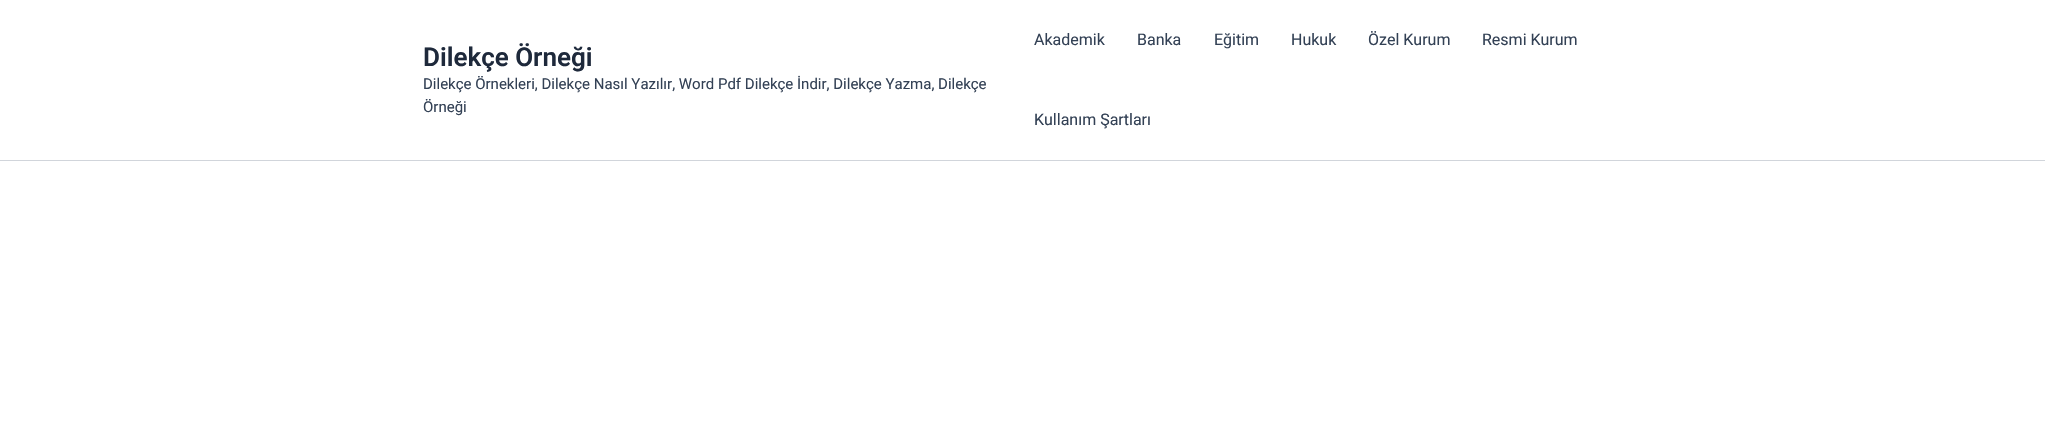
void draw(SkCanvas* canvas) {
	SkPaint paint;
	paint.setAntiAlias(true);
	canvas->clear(0xffffffff);
	paint.setColor(0xffd1d5db);
	canvas->drawRect(SkRect::MakeXYWH(0, 160, 2045, 1), paint);
	SkFont f1(fontMgr->matchFamilyStyle("Roboto", SkFontStyle(600, SkFontStyle::kNormal_Width, SkFontStyle::kUpright_Slant)), 26);
	f1.setSubpixel(true);
	paint.setColor(0xff1e293b);
	canvas->drawString("Dilekçe Örneği", 423, 66, f1, paint);
	SkFont f2(fontMgr->matchFamilyStyle("Roboto", SkFontStyle::Normal()), 15);
	f2.setSubpixel(true);
	paint.setColor(0xff334155);
	canvas->drawString("Dilekçe Örnekleri, Dilekçe Nasıl Yazılır, Word Pdf Dilekçe İndir, Dilekçe Yazma, Dilekçe", 423, 89, f2, paint);
	canvas->drawString("Örneği", 423, 112, f2, paint);
	SkFont f3(fontMgr->matchFamilyStyle("Roboto", SkFontStyle::Normal()), 16);
	f3.setSubpixel(true);
	canvas->drawString("Akademik", 1034, 45, f3, paint);
	canvas->drawString("Banka", 1137, 45, f3, paint);
	canvas->drawString("Eğitim", 1214, 45, f3, paint);
	canvas->drawString("Hukuk", 1291, 45, f3, paint);
	canvas->drawString("Özel Kurum", 1368, 45, f3, paint);
	canvas->drawString("Resmi Kurum", 1482, 45, f3, paint);
	canvas->drawString("Kullanım Şartları", 1034, 125, f3, paint);
}
